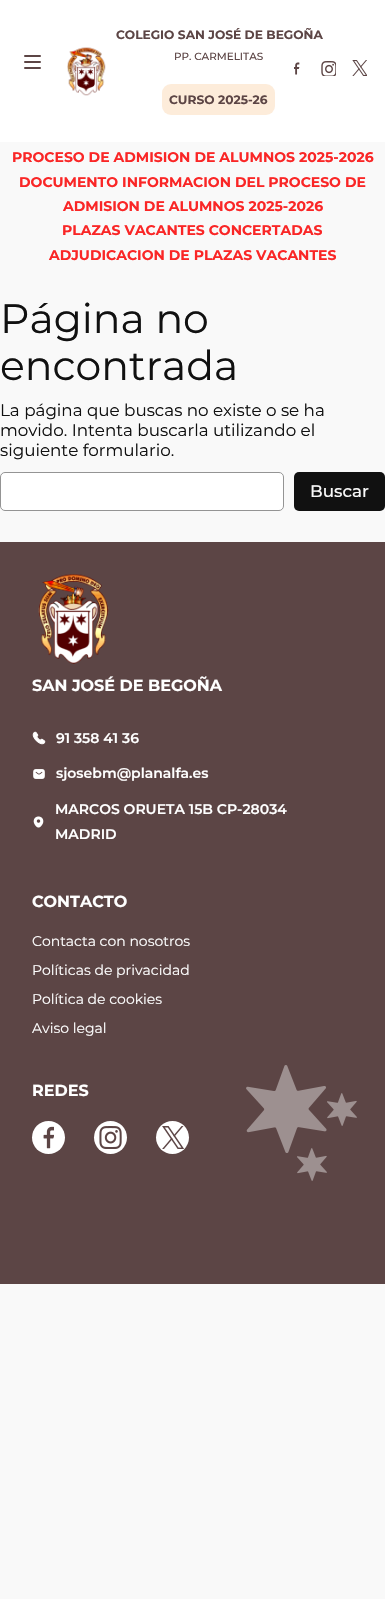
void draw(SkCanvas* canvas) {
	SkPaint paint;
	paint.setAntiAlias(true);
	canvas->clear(0xfff9f9f9);
	paint.setColor(0xffffffff);
	canvas->drawRect(SkRect::MakeXYWH(0, 0, 385, 142), paint);
	paint.setColor(0xff5c4545);
	canvas->drawRoundRect(SkRect::MakeXYWH(24, 55, 17, 2), 1, 1, paint);
	canvas->drawRoundRect(SkRect::MakeXYWH(24, 61, 17, 2), 1, 1, paint);
	canvas->drawRoundRect(SkRect::MakeXYWH(24, 67, 17, 2), 1, 1, paint);
	canvas->drawImageRect(SkImages::DeferredFromEncodedData(SkData::MakeFromFileName("img1.png")), SkRect::MakeXYWH(67, 47, 39, 49), SkSamplingOptions());
	SkFont f1(fontMgr->matchFamilyStyle("Montserrat", SkFontStyle::Bold()), 12.2);
	f1.setSubpixel(true);
	canvas->drawString("COLEGIO SAN JOSÉ DE BEGOÑA", 116, 39, f1, paint);
	SkFont f2(fontMgr->matchFamilyStyle("Montserrat", SkFontStyle(500, SkFontStyle::kNormal_Width, SkFontStyle::kUpright_Slant)), 10.4);
	f2.setSubpixel(true);
	canvas->drawString("PP. CARMELITAS", 174, 60, f2, paint);
	paint.setColor(0xfffdecda);
	canvas->drawRoundRect(SkRect::MakeXYWH(162, 84, 113, 31), 9, 9, paint);
	paint.setColor(0xff5c4545);
	canvas->drawString("CURSO 2025-26", 169, 104, f1, paint);
	canvas->drawImageRect(SkImages::DeferredFromEncodedData(SkData::MakeFromFileName("img2.png")), SkRect::MakeXYWH(294, 62, 6, 13), SkSamplingOptions());
	canvas->drawImageRect(SkImages::DeferredFromEncodedData(SkData::MakeFromFileName("img3.png")), SkRect::MakeXYWH(321, 61, 15, 15), SkSamplingOptions());
	canvas->drawImageRect(SkImages::DeferredFromEncodedData(SkData::MakeFromFileName("img4.png")), SkRect::MakeXYWH(352, 60, 15, 16), SkSamplingOptions());
	SkFont f3(fontMgr->matchFamilyStyle("Montserrat", SkFontStyle::Bold()), 14);
	f3.setSubpixel(true);
	paint.setColor(0xfffa2626);
	canvas->drawString("PROCESO DE ADMISION DE ALUMNOS 2025-2026", 12, 162, f3, paint);
	canvas->drawString("DOCUMENTO INFORMACION DEL PROCESO DE", 19, 187, f3, paint);
	canvas->drawString("ADMISION DE ALUMNOS 2025-2026", 63, 211, f3, paint);
	canvas->drawString("PLAZAS VACANTES CONCERTADAS", 62, 235, f3, paint);
	canvas->drawString("ADJUDICACION DE PLAZAS VACANTES", 49, 260, f3, paint);
	SkFont f4(fontMgr->matchFamilyStyle("Montserrat", SkFontStyle::Normal()), 41);
	f4.setSubpixel(true);
	paint.setColor(0xff111111);
	canvas->drawString("Página no", 0, 333, f4, paint);
	canvas->drawString("encontrada", 0, 380, f4, paint);
	SkFont f5(fontMgr->matchFamilyStyle("Montserrat", SkFontStyle::Normal()), 16.75);
	f5.setSubpixel(true);
	canvas->drawString("La página que buscas no existe o se ha", 0, 416, f5, paint);
	canvas->drawString("movido. Intenta buscarla utilizando el", 0, 436, f5, paint);
	canvas->drawString("siguiente formulario.", 0, 456, f5, paint);
	paint.setColor(0xffffffff);
	canvas->drawRoundRect(SkRect::MakeXYWH(0.5, 472.5, 283, 38), 4.5, 4.5, paint);
	paint.setStroke(true);
	paint.setStrokeWidth(1);
	paint.setColor(0xff949494);
	canvas->drawRoundRect(SkRect::MakeXYWH(0.5, 472.5, 283, 38), 4.5, 4.5, paint);
	paint.setStroke(false);
	paint.setColor(0xff111111);
	canvas->drawRoundRect(SkRect::MakeXYWH(294, 472, 91, 39), 5, 5, paint);
	SkFont f6(fontMgr->matchFamilyStyle("Montserrat", SkFontStyle(500, SkFontStyle::kNormal_Width, SkFontStyle::kUpright_Slant)), 16.75);
	f6.setSubpixel(true);
	paint.setColor(0xfff9f9f9);
	canvas->drawString("Buscar", 310, 497, f6, paint);
	paint.setColor(0xff5c4545);
	canvas->drawRect(SkRect::MakeXYWH(0, 542, 385, 742), paint);
	canvas->drawImageRect(SkImages::DeferredFromEncodedData(SkData::MakeFromFileName("img5.png")), SkRect::MakeXYWH(38, 574, 71, 90), SkSamplingOptions());
	SkFont f7(fontMgr->matchFamilyStyle("Montserrat", SkFontStyle::Bold()), 16);
	f7.setSubpixel(true);
	paint.setColor(0xffffffff);
	canvas->drawString("SAN JOSÉ DE BEGOÑA", 32, 691, f7, paint);
	canvas->drawImageRect(SkImages::DeferredFromEncodedData(SkData::MakeFromFileName("img6.png")), SkRect::MakeXYWH(32, 731, 14, 14), SkSamplingOptions());
	SkFont f8(fontMgr->matchFamilyStyle("Montserrat", SkFontStyle(600, SkFontStyle::kNormal_Width, SkFontStyle::kUpright_Slant)), 14);
	f8.setSubpixel(true);
	canvas->drawString("91 358 41 36", 56, 743, f8, paint);
	canvas->drawImageRect(SkImages::DeferredFromEncodedData(SkData::MakeFromFileName("img7.png")), SkRect::MakeXYWH(33, 769, 12, 10), SkSamplingOptions());
	canvas->drawString("sjosebm@planalfa.es", 56, 778, f8, paint);
	canvas->drawImageRect(SkImages::DeferredFromEncodedData(SkData::MakeFromFileName("img8.png")), SkRect::MakeXYWH(33, 816, 11, 12), SkSamplingOptions());
	canvas->drawString("MARCOS ORUETA 15B CP-28034", 55, 814, f8, paint);
	canvas->drawString("MADRID", 55, 839, f8, paint);
	canvas->drawString("CONTACTO", 32, 907, f7, paint);
	SkFont f9(fontMgr->matchFamilyStyle("Montserrat", SkFontStyle::Normal()), 14);
	f9.setSubpixel(true);
	canvas->drawString("Contacta con nosotros", 32, 946, f9, paint);
	canvas->drawString("Políticas de privacidad", 32, 975, f9, paint);
	canvas->drawString("Política de cookies", 32, 1004, f9, paint);
	canvas->drawString("Aviso legal", 32, 1033, f9, paint);
	canvas->drawString("REDES", 32, 1096, f7, paint);
	canvas->drawCircle(48.5, 1137.5, 16.5, paint);
	canvas->drawImageRect(SkImages::DeferredFromEncodedData(SkData::MakeFromFileName("img9.png")), SkRect::MakeXYWH(43, 1126, 11, 23), SkSamplingOptions());
	canvas->drawCircle(110.5, 1137.5, 16.5, paint);
	canvas->drawImageRect(SkImages::DeferredFromEncodedData(SkData::MakeFromFileName("img10.png")), SkRect::MakeXYWH(99, 1126, 23, 23), SkSamplingOptions());
	canvas->drawCircle(172.5, 1137.5, 16.5, paint);
	canvas->drawImageRect(SkImages::DeferredFromEncodedData(SkData::MakeFromFileName("img11.png")), SkRect::MakeXYWH(162, 1126, 22, 23), SkSamplingOptions());
	canvas->drawImageRect(SkImages::DeferredFromEncodedData(SkData::MakeFromFileName("img12.png")), SkRect::MakeXYWH(246, 1065, 81, 88), SkSamplingOptions());
	canvas->drawImageRect(SkImages::DeferredFromEncodedData(SkData::MakeFromFileName("img13.png")), SkRect::MakeXYWH(327, 1093, 30, 33), SkSamplingOptions());
	canvas->drawImageRect(SkImages::DeferredFromEncodedData(SkData::MakeFromFileName("img13.png")), SkRect::MakeXYWH(297, 1148, 30, 33), SkSamplingOptions());
}
